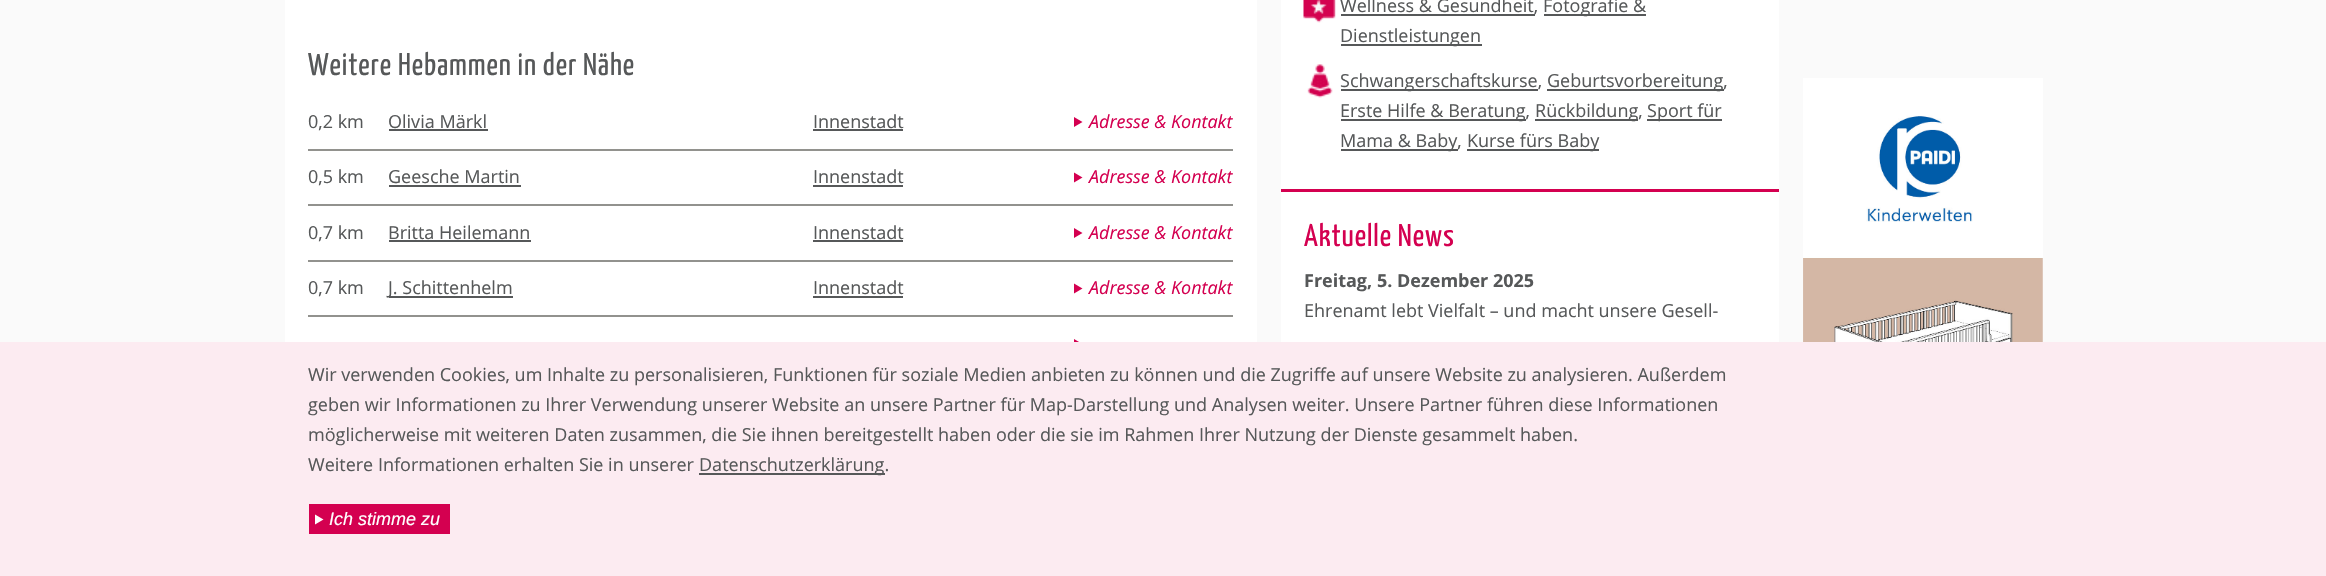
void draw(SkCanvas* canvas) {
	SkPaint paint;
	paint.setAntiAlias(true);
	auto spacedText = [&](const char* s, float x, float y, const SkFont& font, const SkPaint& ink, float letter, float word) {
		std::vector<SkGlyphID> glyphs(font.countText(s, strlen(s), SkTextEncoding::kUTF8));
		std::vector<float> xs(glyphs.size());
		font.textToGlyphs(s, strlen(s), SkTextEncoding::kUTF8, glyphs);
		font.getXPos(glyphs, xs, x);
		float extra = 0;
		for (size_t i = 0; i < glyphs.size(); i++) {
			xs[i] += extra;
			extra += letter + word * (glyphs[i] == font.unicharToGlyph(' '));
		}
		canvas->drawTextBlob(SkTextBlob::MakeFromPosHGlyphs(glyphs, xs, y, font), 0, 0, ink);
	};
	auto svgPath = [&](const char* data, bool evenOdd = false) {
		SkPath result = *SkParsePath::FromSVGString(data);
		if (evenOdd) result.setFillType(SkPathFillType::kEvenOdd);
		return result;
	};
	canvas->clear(0xfffafafa);
	paint.setColor(0xffffffff);
	canvas->drawRect(SkRect::MakeXYWH(285, 0, 972, 342), paint);
	SkFont f1(fontMgr->matchFamilyStyle("Yanone Kaffeesatz", SkFontStyle::Normal()), 31.5);
	f1.setSubpixel(true);
	paint.setColor(0xff565859);
	spacedText("Weitere Hebammen in der Nähe", 308, 75, f1, paint, 0.9, 0);
	SkFont f2(fontMgr->matchFamilyStyle("Open Sans", SkFontStyle::Normal()), 18);
	f2.setSubpixel(true);
	canvas->drawString("0,2 km", 308, 128, f2, paint);
	canvas->drawString("Olivia Märkl", 388, 128, f2, paint);
	canvas->drawRect(SkRect::MakeXYWH(389, 129, 99, 2), paint);
	canvas->drawString("Innenstadt", 813, 128, f2, paint);
	canvas->drawRect(SkRect::MakeXYWH(813, 129, 90, 2), paint);
	paint.setColor(0xffd40050);
	canvas->drawPath(svgPath("M1074 117L1082.5 122L1074 127Z"), paint);
	SkFont f3(fontMgr->matchFamilyStyle("Open Sans", SkFontStyle::Italic()), 18);
	f3.setSubpixel(true);
	canvas->drawString("Adresse & Kontakt", 1089, 128, f3, paint);
	paint.setColor(0xff92928e);
	canvas->drawRect(SkRect::MakeXYWH(308, 149, 925, 2), paint);
	paint.setColor(0xff565859);
	canvas->drawString("0,5 km", 308, 183, f2, paint);
	canvas->drawString("Geesche Martin", 388, 183, f2, paint);
	canvas->drawRect(SkRect::MakeXYWH(389, 185, 132, 2), paint);
	canvas->drawString("Innenstadt", 813, 183, f2, paint);
	canvas->drawRect(SkRect::MakeXYWH(813, 185, 90, 2), paint);
	paint.setColor(0xffd40050);
	canvas->drawPath(svgPath("M1074 172.5L1082.5 177.5L1074 182.5Z"), paint);
	canvas->drawString("Adresse & Kontakt", 1089, 183, f3, paint);
	paint.setColor(0xff92928e);
	canvas->drawRect(SkRect::MakeXYWH(308, 204, 925, 2), paint);
	paint.setColor(0xff565859);
	canvas->drawString("0,7 km", 308, 239, f2, paint);
	canvas->drawString("Britta Heilemann", 388, 239, f2, paint);
	canvas->drawRect(SkRect::MakeXYWH(389, 240, 142, 2), paint);
	canvas->drawString("Innenstadt", 813, 239, f2, paint);
	canvas->drawRect(SkRect::MakeXYWH(813, 240, 90, 2), paint);
	paint.setColor(0xffd40050);
	canvas->drawPath(svgPath("M1074 228L1082.5 233L1074 238Z"), paint);
	canvas->drawString("Adresse & Kontakt", 1089, 239, f3, paint);
	paint.setColor(0xff92928e);
	canvas->drawRect(SkRect::MakeXYWH(308, 260, 925, 2), paint);
	paint.setColor(0xff565859);
	canvas->drawString("0,7 km", 308, 294, f2, paint);
	canvas->drawRect(SkRect::MakeXYWH(389, 296, 124, 2), paint);
	canvas->drawString("J. Schittenhelm", 388, 294, f2, paint);
	canvas->drawString("Innenstadt", 813, 294, f2, paint);
	canvas->drawRect(SkRect::MakeXYWH(813, 296, 90, 2), paint);
	paint.setColor(0xffd40050);
	canvas->drawPath(svgPath("M1074 283.5L1082.5 288.5L1074 293.5Z"), paint);
	canvas->drawString("Adresse & Kontakt", 1089, 294, f3, paint);
	paint.setColor(0xff92928e);
	canvas->drawRect(SkRect::MakeXYWH(308, 315, 925, 2), paint);
	paint.setColor(0xffd40050);
	canvas->drawPath(svgPath("M1074 339L1082.5 344L1074 349Z"), paint);
	paint.setColor(0xffffffff);
	canvas->drawRect(SkRect::MakeXYWH(1281, 0, 498, 342), paint);
	canvas->drawImageRect(SkImages::DeferredFromEncodedData(SkData::MakeFromFileName("img1.png")), SkRect::MakeXYWH(1303, 0, 33, 23), SkSamplingOptions());
	paint.setColor(0xff565859);
	canvas->drawRect(SkRect::MakeXYWH(1341, 14, 194, 2), paint);
	canvas->drawString("Wellness & Gesundheit,", 1340, 12, f2, paint);
	canvas->drawRect(SkRect::MakeXYWH(1544, 14, 102, 2), paint);
	canvas->drawString("Fotografie &", 1543, 12, f2, paint);
	canvas->drawRect(SkRect::MakeXYWH(1341, 44, 141, 2), paint);
	canvas->drawString("Dienstleistungen", 1340, 42, f2, paint);
	canvas->drawImageRect(SkImages::DeferredFromEncodedData(SkData::MakeFromFileName("img2.png")), SkRect::MakeXYWH(1307, 64, 26, 34), SkSamplingOptions());
	canvas->drawRect(SkRect::MakeXYWH(1341, 89, 197, 2), paint);
	canvas->drawString("Schwangerschaftskurse,", 1340, 87, f2, paint);
	canvas->drawRect(SkRect::MakeXYWH(1547, 89, 177, 2), paint);
	canvas->drawString("Geburtsvorbereitung,", 1547, 87, f2, paint);
	canvas->drawRect(SkRect::MakeXYWH(1341, 119, 185, 2), paint);
	canvas->drawString("Erste Hilfe & Beratung,", 1340, 117, f2, paint);
	canvas->drawRect(SkRect::MakeXYWH(1535, 119, 103, 2), paint);
	canvas->drawString("Rückbildung,", 1535, 117, f2, paint);
	canvas->drawRect(SkRect::MakeXYWH(1647, 119, 75, 2), paint);
	canvas->drawString("Sport für", 1647, 117, f2, paint);
	canvas->drawRect(SkRect::MakeXYWH(1341, 149, 117, 2), paint);
	canvas->drawString("Mama & Baby,", 1340, 147, f2, paint);
	canvas->drawRect(SkRect::MakeXYWH(1467, 149, 132, 2), paint);
	canvas->drawString("Kurse fürs Baby", 1467, 147, f2, paint);
	paint.setColor(0xffd40050);
	canvas->drawRect(SkRect::MakeXYWH(1281, 189, 498, 3), paint);
	spacedText("Aktuelle News", 1304, 246, f1, paint, 0.9, 0);
	SkFont f4(fontMgr->matchFamilyStyle("Open Sans", SkFontStyle::Bold()), 18);
	f4.setSubpixel(true);
	paint.setColor(0xff565859);
	canvas->drawString("Freitag, 5. Dezember 2025", 1304, 287, f4, paint);
	canvas->drawString("Ehrenamt lebt Vielfalt – und macht unsere Gesell-", 1304, 317, f2, paint);
	canvas->drawImageRect(SkImages::DeferredFromEncodedData(SkData::MakeFromFileName("img3.png")), SkRect::MakeXYWH(1803, 78, 240, 264), SkSamplingOptions());
	paint.setColor(0xfffcebf1);
	canvas->drawRect(SkRect::MakeXYWH(0, 342, 2326, 234), paint);
	paint.setColor(0xff565859);
	canvas->drawString("Wir verwenden Cookies, um Inhalte zu personalisieren, Funktionen für soziale Medien anbieten zu können und die Zugriffe auf unsere Website zu analysieren. Außerdem", 308, 381, f2, paint);
	canvas->drawString("geben wir Informationen zu Ihrer Verwendung unserer Website an unsere Partner für Map-Darstellung und Analysen weiter. Unsere Partner führen diese Informationen", 308, 411, f2, paint);
	canvas->drawString("möglicherweise mit weiteren Daten zusammen, die Sie ihnen bereitgestellt haben oder die sie im Rahmen Ihrer Nutzung der Dienste gesammelt haben.", 308, 441, f2, paint);
	canvas->drawString("Weitere Informationen erhalten Sie in unserer", 308, 471, f2, paint);
	canvas->drawRect(SkRect::MakeXYWH(699, 473, 186, 2), paint);
	canvas->drawString("Datenschutzerklärung.", 699, 471, f2, paint);
	paint.setColor(0xffd40050);
	canvas->drawRect(SkRect::MakeXYWH(309, 504, 141, 30), paint);
	paint.setColor(0xffffffff);
	canvas->drawPath(svgPath("M315 514.5L323.5 519.5L315 524.5Z"), paint);
	SkFont f5(fontMgr->matchFamilyStyle("Liberation Sans", SkFontStyle::Italic()), 18);
	f5.setSubpixel(true);
	canvas->drawString("Ich stimme zu", 329, 525, f5, paint);
}
